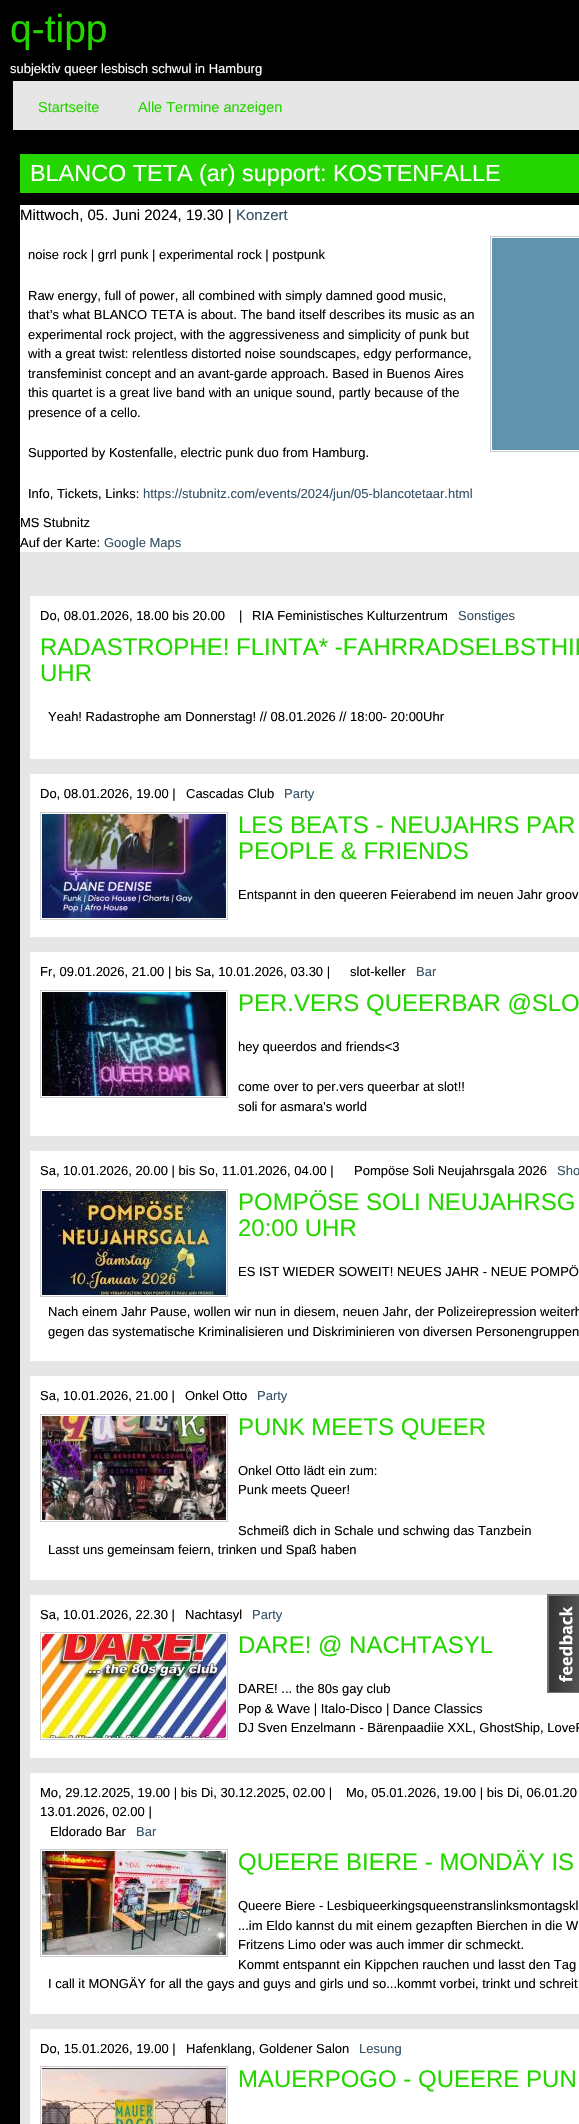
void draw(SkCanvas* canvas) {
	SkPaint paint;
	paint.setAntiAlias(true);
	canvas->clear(0xff000000);
	SkFont f1(fontMgr->matchFamilyStyle("Liberation Sans", SkFontStyle::Normal()), 39);
	f1.setSubpixel(true);
	paint.setColor(0xff25d500);
	canvas->drawString("q-tipp", 10, 42, f1, paint);
	SkFont f2(fontMgr->matchFamilyStyle("Liberation Sans", SkFontStyle::Normal()), 13);
	f2.setSubpixel(true);
	paint.setColor(0xffffffff);
	canvas->drawString("subjektiv queer lesbisch schwul in Hamburg", 10, 73, f2, paint);
	paint.setColor(0xffe6e6e6);
	canvas->drawRect(SkRect::MakeXYWH(13, 81, 566, 49), paint);
	SkFont f3(fontMgr->matchFamilyStyle("Liberation Sans", SkFontStyle::Normal()), 14.5);
	f3.setSubpixel(true);
	paint.setColor(0xff25d500);
	canvas->drawString("Startseite", 38, 112, f3, paint);
	canvas->drawString("Alle Termine anzeigen", 138, 112, f3, paint);
	canvas->drawRect(SkRect::MakeXYWH(20, 154, 559, 39), paint);
	SkFont f4(fontMgr->matchFamilyStyle("Liberation Sans", SkFontStyle::Normal()), 23.4);
	f4.setSubpixel(true);
	paint.setColor(0xffffffff);
	canvas->drawString("BLANCO TETA (ar) support: KOSTENFALLE", 30, 181, f4, paint);
	paint.setColor(0xffe6e6e6);
	canvas->drawRect(SkRect::MakeXYWH(20, 552, 559, 1572), paint);
	paint.setColor(0xffffffff);
	canvas->drawRect(SkRect::MakeXYWH(20, 205, 559, 347), paint);
	SkFont f5(fontMgr->matchFamilyStyle("Liberation Sans", SkFontStyle::Normal()), 15);
	f5.setSubpixel(true);
	paint.setColor(0xff000000);
	canvas->drawString("Mittwoch, 05. Juni 2024, 19.30 |", 20, 220, f5, paint);
	paint.setColor(0xff335166);
	canvas->drawString("Konzert", 236, 220, f5, paint);
	paint.setColor(0xff000000);
	canvas->drawString("noise rock | grrl punk | experimental rock | postpunk", 28, 259, f2, paint);
	canvas->drawString("Raw energy, full of power, all combined with simply damned good music,", 28, 300, f2, paint);
	canvas->drawString("that’s what BLANCO TETA is about. The band itself describes its music as an", 28, 319, f2, paint);
	canvas->drawString("experimental rock project, with the aggressiveness and simplicity of punk but", 28, 339, f2, paint);
	canvas->drawString("with a great twist: relentless distorted noise soundscapes, edgy performance,", 28, 358, f2, paint);
	canvas->drawString("transfeminist concept and an avant-garde approach. Based in Buenos Aires", 28, 378, f2, paint);
	canvas->drawString("this quartet is a great live band with an unique sound, partly because of the", 28, 397, f2, paint);
	canvas->drawString("presence of a cello.", 28, 417, f2, paint);
	canvas->drawString("Supported by Kostenfalle, electric punk duo from Hamburg.", 28, 457, f2, paint);
	canvas->drawString("Info, Tickets, Links:", 28, 498, f2, paint);
	paint.setColor(0xff335166);
	canvas->drawString("https://stubnitz.com/events/2024/jun/05-blancotetaar.html", 143, 498, f2, paint);
	paint.setStroke(true);
	paint.setStrokeWidth(1);
	paint.setColor(0xffcccccc);
	canvas->drawRect(SkRect::MakeXYWH(490.5, 236.5, 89, 215), paint);
	paint.setStroke(false);
	paint.setColor(0xff6094ac);
	canvas->drawRect(SkRect::MakeXYWH(492, 238, 87, 212), paint);
	paint.setColor(0xff000000);
	canvas->drawString("MS Stubnitz", 20, 527, f2, paint);
	canvas->drawString("Auf der Karte:", 20, 547, f2, paint);
	paint.setColor(0xff335166);
	canvas->drawString("Google Maps", 104, 547, f2, paint);
	paint.setColor(0xffffffff);
	canvas->drawRect(SkRect::MakeXYWH(30, 596, 549, 163), paint);
	paint.setColor(0xff000000);
	canvas->drawString("Do, 08.01.2026, 18.00 bis 20.00", 40, 620, f2, paint);
	canvas->drawString("|", 239, 620, f2, paint);
	canvas->drawString("RIA Feministisches Kulturzentrum", 252, 620, f2, paint);
	paint.setColor(0xff335166);
	canvas->drawString("Sonstiges", 458, 620, f2, paint);
	SkFont f6(fontMgr->matchFamilyStyle("Liberation Sans", SkFontStyle::Normal()), 24);
	f6.setSubpixel(true);
	paint.setColor(0xff25d500);
	canvas->drawString("RADASTROPHE! FLINTA* -FAHRRADSELBSTHIL", 40, 655, f6, paint);
	canvas->drawString("UHR", 40, 681, f6, paint);
	paint.setColor(0xff000000);
	canvas->drawString("Yeah! Radastrophe am Donnerstag! // 08.01.2026 // 18:00- 20:00Uhr", 48, 721, f2, paint);
	paint.setColor(0xffffffff);
	canvas->drawRect(SkRect::MakeXYWH(30, 774, 549, 163), paint);
	paint.setColor(0xff000000);
	canvas->drawString("Do, 08.01.2026, 19.00 |", 40, 798, f2, paint);
	canvas->drawString("Cascadas Club", 186, 798, f2, paint);
	paint.setColor(0xff335166);
	canvas->drawString("Party", 284, 798, f2, paint);
	paint.setStroke(true);
	paint.setColor(0xffcccccc);
	canvas->drawRect(SkRect::MakeXYWH(40.5, 812.5, 187, 107), paint);
	canvas->drawImageRect(SkImages::DeferredFromEncodedData(SkData::MakeFromFileName("img1.png")), SkRect::MakeXYWH(42, 814, 184, 104), SkSamplingOptions());
	paint.setStroke(false);
	paint.setColor(0xff25d500);
	canvas->drawString("LES BEATS - NEUJAHRS PAR", 238, 833, f6, paint);
	canvas->drawString("PEOPLE & FRIENDS", 238, 859, f6, paint);
	paint.setColor(0xff000000);
	canvas->drawString("Entspannt in den queeren Feierabend im neuen Jahr groov", 238, 899, f2, paint);
	paint.setColor(0xffffffff);
	canvas->drawRect(SkRect::MakeXYWH(30, 952, 549, 184), paint);
	paint.setColor(0xff000000);
	canvas->drawString("Fr, 09.01.2026, 21.00 | bis Sa, 10.01.2026, 03.30 |", 40, 976, f2, paint);
	canvas->drawString("slot-keller", 350, 976, f2, paint);
	paint.setColor(0xff335166);
	canvas->drawString("Bar", 416, 976, f2, paint);
	paint.setStroke(true);
	paint.setColor(0xffcccccc);
	canvas->drawRect(SkRect::MakeXYWH(40.5, 990.5, 187, 107), paint);
	canvas->drawImageRect(SkImages::DeferredFromEncodedData(SkData::MakeFromFileName("img2.png")), SkRect::MakeXYWH(42, 992, 184, 104), SkSamplingOptions());
	paint.setStroke(false);
	paint.setColor(0xff25d500);
	canvas->drawString("PER.VERS QUEERBAR @SLO", 238, 1011, f6, paint);
	paint.setColor(0xff000000);
	canvas->drawString("hey queerdos and friends<3", 238, 1051, f2, paint);
	canvas->drawString("come over to per.vers queerbar at slot!!", 238, 1091, f2, paint);
	canvas->drawString("soli for asmara's world", 238, 1111, f2, paint);
	paint.setColor(0xffffffff);
	canvas->drawRect(SkRect::MakeXYWH(30, 1151, 549, 210), paint);
	paint.setColor(0xff000000);
	canvas->drawString("Sa, 10.01.2026, 20.00 | bis So, 11.01.2026, 04.00 |", 40, 1175, f2, paint);
	canvas->drawString("Pompöse Soli Neujahrsgala 2026", 354, 1175, f2, paint);
	paint.setColor(0xff335166);
	canvas->drawString("Sho", 557, 1175, f2, paint);
	paint.setStroke(true);
	paint.setColor(0xffcccccc);
	canvas->drawRect(SkRect::MakeXYWH(40.5, 1189.5, 187, 107), paint);
	canvas->drawImageRect(SkImages::DeferredFromEncodedData(SkData::MakeFromFileName("img3.png")), SkRect::MakeXYWH(42, 1191, 184, 104), SkSamplingOptions());
	paint.setStroke(false);
	paint.setColor(0xff25d500);
	canvas->drawString("POMPÖSE SOLI NEUJAHRSG", 238, 1210, f6, paint);
	canvas->drawString("20:00 UHR", 238, 1236, f6, paint);
	paint.setColor(0xff000000);
	canvas->drawString("ES IST WIEDER SOWEIT! NEUES JAHR - NEUE POMPÖ", 238, 1276, f2, paint);
	canvas->drawString("Nach einem Jahr Pause, wollen wir nun in diesem, neuen Jahr, der Polizeirepression weiterh", 48, 1316, f2, paint);
	canvas->drawString("gegen das systematische Kriminalisieren und Diskriminieren von diversen Personengruppen", 48, 1336, f2, paint);
	paint.setColor(0xffffffff);
	canvas->drawRect(SkRect::MakeXYWH(30, 1376, 549, 204), paint);
	paint.setColor(0xff000000);
	canvas->drawString("Sa, 10.01.2026, 21.00 |", 40, 1400, f2, paint);
	canvas->drawString("Onkel Otto", 185, 1400, f2, paint);
	paint.setColor(0xff335166);
	canvas->drawString("Party", 257, 1400, f2, paint);
	paint.setStroke(true);
	paint.setColor(0xffcccccc);
	canvas->drawRect(SkRect::MakeXYWH(40.5, 1414.5, 187, 107), paint);
	canvas->drawImageRect(SkImages::DeferredFromEncodedData(SkData::MakeFromFileName("img4.png")), SkRect::MakeXYWH(42, 1416, 184, 104), SkSamplingOptions());
	paint.setStroke(false);
	paint.setColor(0xff25d500);
	canvas->drawString("PUNK MEETS QUEER", 238, 1435, f6, paint);
	paint.setColor(0xff000000);
	canvas->drawString("Onkel Otto lädt ein zum:", 238, 1475, f2, paint);
	canvas->drawString("Punk meets Queer!", 238, 1494, f2, paint);
	canvas->drawString("Schmeiß dich in Schale und schwing das Tanzbein", 238, 1535, f2, paint);
	canvas->drawString("Lasst uns gemeinsam feiern, trinken und Spaß haben", 48, 1554, f2, paint);
	paint.setColor(0xffffffff);
	canvas->drawRect(SkRect::MakeXYWH(30, 1595, 549, 163), paint);
	paint.setColor(0xff000000);
	canvas->drawString("Sa, 10.01.2026, 22.30 |", 40, 1619, f2, paint);
	canvas->drawString("Nachtasyl", 185, 1619, f2, paint);
	paint.setColor(0xff335166);
	canvas->drawString("Party", 252, 1619, f2, paint);
	paint.setStroke(true);
	paint.setColor(0xffcccccc);
	canvas->drawRect(SkRect::MakeXYWH(40.5, 1632.5, 187, 107), paint);
	canvas->drawImageRect(SkImages::DeferredFromEncodedData(SkData::MakeFromFileName("img5.png")), SkRect::MakeXYWH(42, 1634, 184, 104), SkSamplingOptions());
	paint.setStroke(false);
	paint.setColor(0xff25d500);
	canvas->drawString("DARE! @ NACHTASYL", 238, 1653, f6, paint);
	paint.setColor(0xff000000);
	canvas->drawString("DARE! ... the 80s gay club", 238, 1693, f2, paint);
	canvas->drawString("Pop & Wave | Italo-Disco | Dance Classics", 238, 1713, f2, paint);
	canvas->drawString("DJ Sven Enzelmann - Bärenpaadiie XXL, GhostShip, LoveP", 238, 1732, f2, paint);
	paint.setColor(0xffffffff);
	canvas->drawRect(SkRect::MakeXYWH(30, 1773, 549, 241), paint);
	paint.setColor(0xff000000);
	canvas->drawString("Mo, 29.12.2025, 19.00 | bis Di, 30.12.2025, 02.00 |", 40, 1797, f2, paint);
	canvas->drawString("Mo, 05.01.2026, 19.00 | bis Di, 06.01.20", 346, 1797, f2, paint);
	canvas->drawString("13.01.2026, 02.00 |", 40, 1816, f2, paint);
	canvas->drawString("Eldorado Bar", 50, 1836, f2, paint);
	paint.setColor(0xff335166);
	canvas->drawString("Bar", 136, 1836, f2, paint);
	paint.setStroke(true);
	paint.setColor(0xffcccccc);
	canvas->drawRect(SkRect::MakeXYWH(40.5, 1849.5, 187, 107), paint);
	canvas->drawImageRect(SkImages::DeferredFromEncodedData(SkData::MakeFromFileName("img6.png")), SkRect::MakeXYWH(42, 1851, 184, 104), SkSamplingOptions());
	paint.setStroke(false);
	paint.setColor(0xff25d500);
	canvas->drawString("QUEERE BIERE - MONDÄY IS", 238, 1870, f6, paint);
	paint.setColor(0xff000000);
	canvas->drawString("Queere Biere - Lesbiqueerkingsqueenstranslinksmontagskl", 238, 1910, f2, paint);
	canvas->drawString("...im Eldo kannst du mit einem gezapften Bierchen in die W", 238, 1930, f2, paint);
	canvas->drawString("Fritzens Limo oder was auch immer dir schmeckt.", 238, 1949, f2, paint);
	canvas->drawString("Kommt entspannt ein Kippchen rauchen und lasst den Tag", 238, 1969, f2, paint);
	canvas->drawString("I call it MONGÄY for all the gays and guys and girls und so...kommt vorbei, trinkt und schreit", 48, 1988, f2, paint);
	paint.setColor(0xffffffff);
	canvas->drawRect(SkRect::MakeXYWH(30, 2029, 549, 95), paint);
	paint.setColor(0xff000000);
	canvas->drawString("Do, 15.01.2026, 19.00 |", 40, 2053, f2, paint);
	canvas->drawString("Hafenklang, Goldener Salon", 186, 2053, f2, paint);
	paint.setColor(0xff335166);
	canvas->drawString("Lesung", 359, 2053, f2, paint);
	paint.setStroke(true);
	paint.setColor(0xffcccccc);
	canvas->drawRect(SkRect::MakeXYWH(40.5, 2066.5, 187, 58), paint);
	canvas->drawImageRect(SkImages::DeferredFromEncodedData(SkData::MakeFromFileName("img7.png")), SkRect::MakeXYWH(42, 2068, 184, 56), SkSamplingOptions());
	paint.setStroke(false);
	paint.setColor(0xff25d500);
	canvas->drawString("MAUERPOGO - QUEERE PUN", 238, 2087, f6, paint);
	canvas->drawImageRect(SkImages::DeferredFromEncodedData(SkData::MakeFromFileName("img8.png")), SkRect::MakeXYWH(547, 1594, 32, 99), SkSamplingOptions());
}
